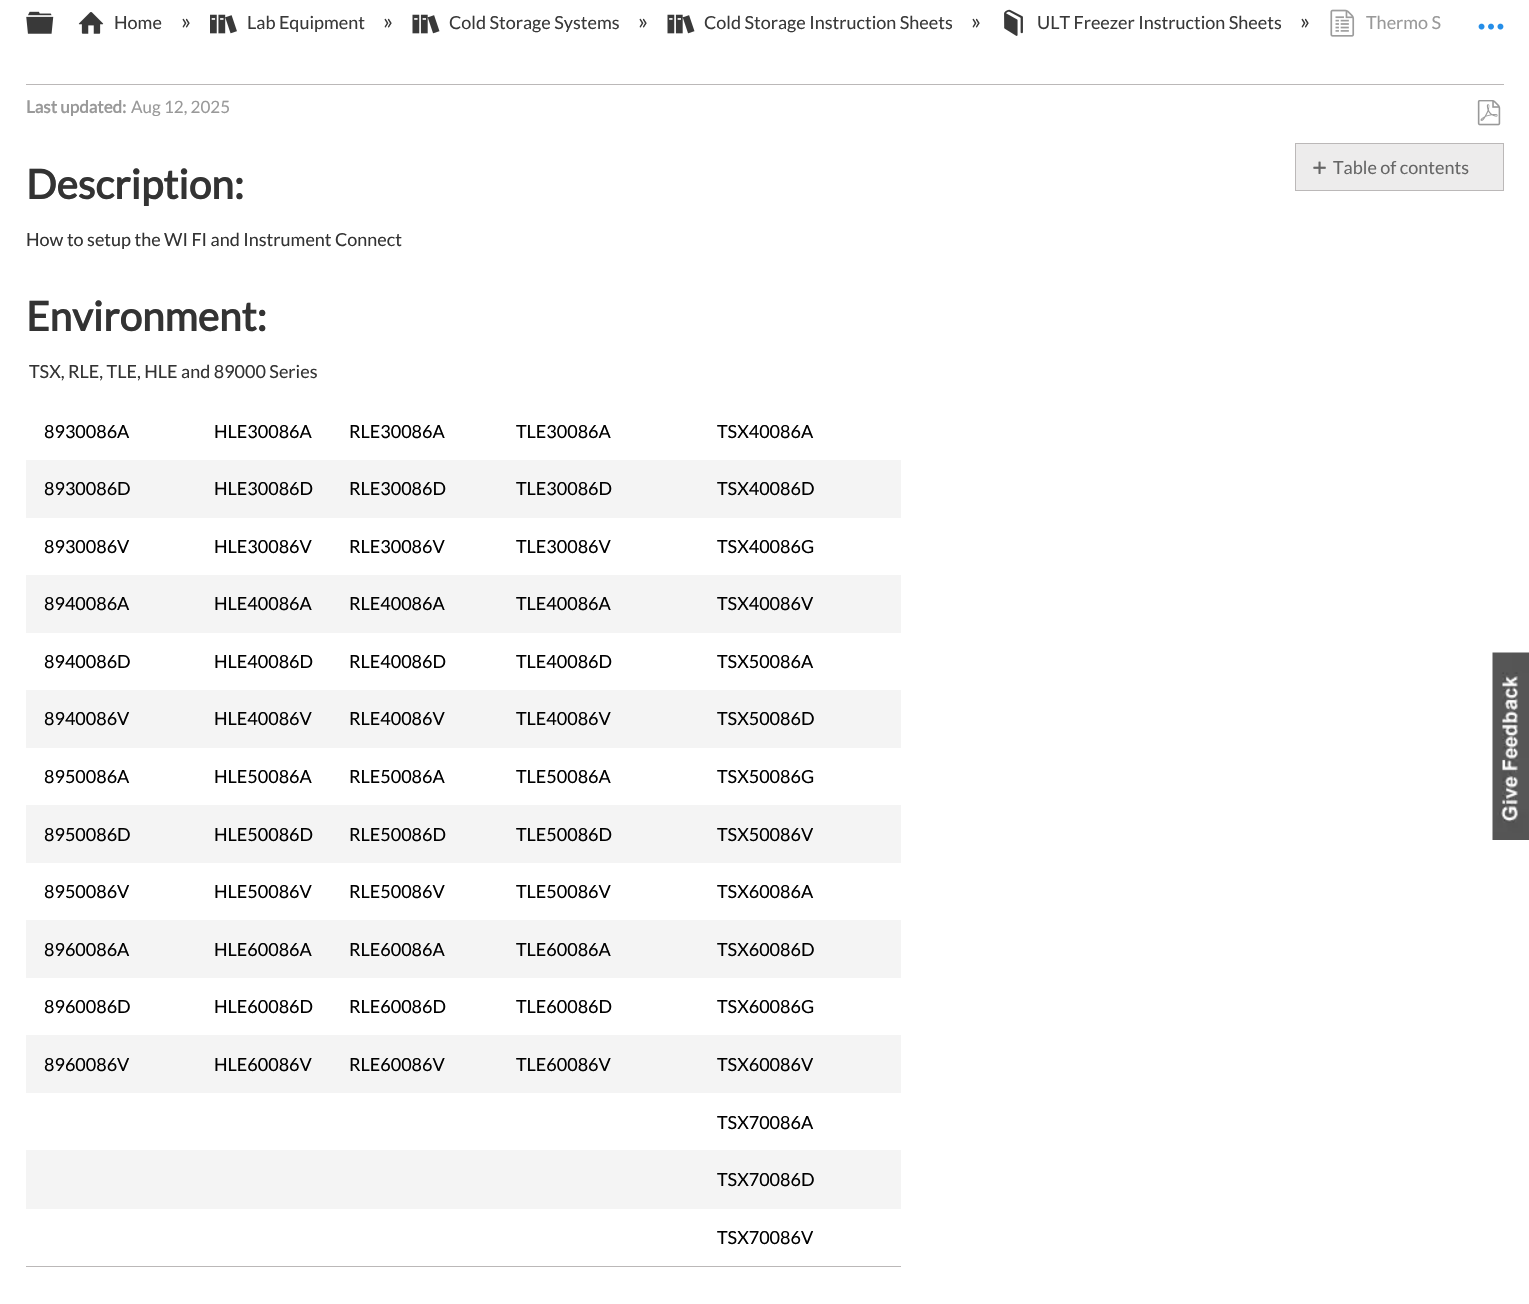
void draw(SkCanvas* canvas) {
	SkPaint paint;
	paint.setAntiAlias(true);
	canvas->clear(0xffffffff);
	canvas->drawImageRect(SkImages::DeferredFromEncodedData(SkData::MakeFromFileName("img1.png")), SkRect::MakeXYWH(26, 11, 28, 23), SkSamplingOptions());
	canvas->drawImageRect(SkImages::DeferredFromEncodedData(SkData::MakeFromFileName("img2.png")), SkRect::MakeXYWH(78, 12, 26, 22), SkSamplingOptions());
	SkFont f1(fontMgr->matchFamilyStyle("Lato", SkFontStyle::Normal()), 18);
	f1.setSubpixel(true);
	paint.setColor(0xff393939);
	canvas->drawString("Home", 114, 29, f1, paint);
	SkFont f2(fontMgr->matchFamilyStyle("Lato", SkFontStyle::Normal()), 22);
	f2.setSubpixel(true);
	canvas->drawString("»", 181, 29, f2, paint);
	canvas->drawImageRect(SkImages::DeferredFromEncodedData(SkData::MakeFromFileName("img3.png")), SkRect::MakeXYWH(210, 14, 27, 20), SkSamplingOptions());
	canvas->drawString("Lab Equipment", 247, 29, f1, paint);
	canvas->drawString("»", 383, 29, f2, paint);
	canvas->drawImageRect(SkImages::DeferredFromEncodedData(SkData::MakeFromFileName("img4.png")), SkRect::MakeXYWH(412, 14, 28, 20), SkSamplingOptions());
	canvas->drawString("Cold Storage Systems", 449, 29, f1, paint);
	canvas->drawString("»", 638, 29, f2, paint);
	canvas->drawImageRect(SkImages::DeferredFromEncodedData(SkData::MakeFromFileName("img4.png")), SkRect::MakeXYWH(667, 14, 28, 20), SkSamplingOptions());
	canvas->drawString("Cold Storage Instruction Sheets", 704, 29, f1, paint);
	canvas->drawString("»", 971, 29, f2, paint);
	canvas->drawImageRect(SkImages::DeferredFromEncodedData(SkData::MakeFromFileName("img5.png")), SkRect::MakeXYWH(1004, 9, 19, 27), SkSamplingOptions());
	canvas->drawString("ULT Freezer Instruction Sheets", 1037, 29, f1, paint);
	canvas->drawString("»", 1300, 29, f2, paint);
	canvas->drawImageRect(SkImages::DeferredFromEncodedData(SkData::MakeFromFileName("img6.png")), SkRect::MakeXYWH(1330, 9, 25, 28), SkSamplingOptions());
	paint.setColor(0xff999999);
	canvas->drawString("Thermo S", 1366, 29, f1, paint);
	canvas->drawImageRect(SkImages::DeferredFromEncodedData(SkData::MakeFromFileName("img7.png")), SkRect::MakeXYWH(1478, 23, 26, 7), SkSamplingOptions());
	paint.setColor(0xffbbb8b8);
	canvas->drawRect(SkRect::MakeXYWH(26, 84, 1478, 1), paint);
	SkFont f3(fontMgr->matchFamilyStyle("Lato", SkFontStyle::Bold()), 17);
	f3.setSubpixel(true);
	paint.setColor(0xff999999);
	canvas->drawString("Last updated:", 26, 113, f3, paint);
	SkFont f4(fontMgr->matchFamilyStyle("Lato", SkFontStyle::Normal()), 17);
	f4.setSubpixel(true);
	canvas->drawString("Aug 12, 2025", 131, 113, f4, paint);
	canvas->drawImageRect(SkImages::DeferredFromEncodedData(SkData::MakeFromFileName("img8.png")), SkRect::MakeXYWH(1477, 100, 24, 26), SkSamplingOptions());
	paint.setColor(0xffedecec);
	canvas->drawRect(SkRect::MakeXYWH(1295.5, 143.5, 208, 47), paint);
	paint.setStroke(true);
	paint.setStrokeWidth(1);
	paint.setColor(0xffbbb8b8);
	canvas->drawRect(SkRect::MakeXYWH(1295.5, 143.5, 208, 47), paint);
	canvas->drawImageRect(SkImages::DeferredFromEncodedData(SkData::MakeFromFileName("img9.png")), SkRect::MakeXYWH(1313, 161, 13, 13), SkSamplingOptions());
	paint.setStroke(false);
	paint.setColor(0xff666666);
	canvas->drawString("Table of contents", 1333, 174, f1, paint);
	SkFont f5(fontMgr->matchFamilyStyle("Lato", SkFontStyle::Bold()), 40.5);
	f5.setSubpixel(true);
	paint.setColor(0xff333333);
	canvas->drawString("Description:", 26, 199, f5, paint);
	canvas->drawString("How to setup the WI FI and Instrument Connect", 26, 246, f1, paint);
	canvas->drawString("Environment:", 26, 331, f5, paint);
	canvas->drawString("TSX, RLE, TLE, HLE and 89000 Series", 29, 378, f1, paint);
	paint.setColor(0xffbbb8b8);
	canvas->drawRect(SkRect::MakeXYWH(26, 1266, 875, 1), paint);
	paint.setColor(0xff000000);
	canvas->drawString("8930086A", 44, 438, f1, paint);
	canvas->drawString("HLE30086A", 214, 438, f1, paint);
	canvas->drawString("RLE30086A", 349, 438, f1, paint);
	canvas->drawString("TLE30086A", 516, 438, f1, paint);
	canvas->drawString("TSX40086A", 717, 438, f1, paint);
	paint.setColor(0xfff4f4f4);
	canvas->drawRect(SkRect::MakeXYWH(26, 460, 875, 58), paint);
	paint.setColor(0xff000000);
	canvas->drawString("8930086D", 44, 495, f1, paint);
	canvas->drawString("HLE30086D", 214, 495, f1, paint);
	canvas->drawString("RLE30086D", 349, 495, f1, paint);
	canvas->drawString("TLE30086D", 516, 495, f1, paint);
	canvas->drawString("TSX40086D", 717, 495, f1, paint);
	canvas->drawString("8930086V", 44, 553, f1, paint);
	canvas->drawString("HLE30086V", 214, 553, f1, paint);
	canvas->drawString("RLE30086V", 349, 553, f1, paint);
	canvas->drawString("TLE30086V", 516, 553, f1, paint);
	canvas->drawString("TSX40086G", 717, 553, f1, paint);
	paint.setColor(0xfff4f4f4);
	canvas->drawRect(SkRect::MakeXYWH(26, 575, 875, 58), paint);
	paint.setColor(0xff000000);
	canvas->drawString("8940086A", 44, 610, f1, paint);
	canvas->drawString("HLE40086A", 214, 610, f1, paint);
	canvas->drawString("RLE40086A", 349, 610, f1, paint);
	canvas->drawString("TLE40086A", 516, 610, f1, paint);
	canvas->drawString("TSX40086V", 717, 610, f1, paint);
	canvas->drawString("8940086D", 44, 668, f1, paint);
	canvas->drawString("HLE40086D", 214, 668, f1, paint);
	canvas->drawString("RLE40086D", 349, 668, f1, paint);
	canvas->drawString("TLE40086D", 516, 668, f1, paint);
	canvas->drawString("TSX50086A", 717, 668, f1, paint);
	paint.setColor(0xfff4f4f4);
	canvas->drawRect(SkRect::MakeXYWH(26, 690, 875, 58), paint);
	paint.setColor(0xff000000);
	canvas->drawString("8940086V", 44, 725, f1, paint);
	canvas->drawString("HLE40086V", 214, 725, f1, paint);
	canvas->drawString("RLE40086V", 349, 725, f1, paint);
	canvas->drawString("TLE40086V", 516, 725, f1, paint);
	canvas->drawString("TSX50086D", 717, 725, f1, paint);
	canvas->drawString("8950086A", 44, 783, f1, paint);
	canvas->drawString("HLE50086A", 214, 783, f1, paint);
	canvas->drawString("RLE50086A", 349, 783, f1, paint);
	canvas->drawString("TLE50086A", 516, 783, f1, paint);
	canvas->drawString("TSX50086G", 717, 783, f1, paint);
	paint.setColor(0xfff4f4f4);
	canvas->drawRect(SkRect::MakeXYWH(26, 805, 875, 58), paint);
	paint.setColor(0xff000000);
	canvas->drawString("8950086D", 44, 841, f1, paint);
	canvas->drawString("HLE50086D", 214, 841, f1, paint);
	canvas->drawString("RLE50086D", 349, 841, f1, paint);
	canvas->drawString("TLE50086D", 516, 841, f1, paint);
	canvas->drawString("TSX50086V", 717, 841, f1, paint);
	canvas->drawString("8950086V", 44, 898, f1, paint);
	canvas->drawString("HLE50086V", 214, 898, f1, paint);
	canvas->drawString("RLE50086V", 349, 898, f1, paint);
	canvas->drawString("TLE50086V", 516, 898, f1, paint);
	canvas->drawString("TSX60086A", 717, 898, f1, paint);
	paint.setColor(0xfff4f4f4);
	canvas->drawRect(SkRect::MakeXYWH(26, 920, 875, 58), paint);
	paint.setColor(0xff000000);
	canvas->drawString("8960086A", 44, 956, f1, paint);
	canvas->drawString("HLE60086A", 214, 956, f1, paint);
	canvas->drawString("RLE60086A", 349, 956, f1, paint);
	canvas->drawString("TLE60086A", 516, 956, f1, paint);
	canvas->drawString("TSX60086D", 717, 956, f1, paint);
	canvas->drawString("8960086D", 44, 1013, f1, paint);
	canvas->drawString("HLE60086D", 214, 1013, f1, paint);
	canvas->drawString("RLE60086D", 349, 1013, f1, paint);
	canvas->drawString("TLE60086D", 516, 1013, f1, paint);
	canvas->drawString("TSX60086G", 717, 1013, f1, paint);
	paint.setColor(0xfff4f4f4);
	canvas->drawRect(SkRect::MakeXYWH(26, 1035, 875, 58), paint);
	paint.setColor(0xff000000);
	canvas->drawString("8960086V", 44, 1071, f1, paint);
	canvas->drawString("HLE60086V", 214, 1071, f1, paint);
	canvas->drawString("RLE60086V", 349, 1071, f1, paint);
	canvas->drawString("TLE60086V", 516, 1071, f1, paint);
	canvas->drawString("TSX60086V", 717, 1071, f1, paint);
	canvas->drawString("TSX70086A", 717, 1129, f1, paint);
	paint.setColor(0xfff4f4f4);
	canvas->drawRect(SkRect::MakeXYWH(26, 1150, 875, 59), paint);
	paint.setColor(0xff000000);
	canvas->drawString("TSX70086D", 717, 1186, f1, paint);
	canvas->drawString("TSX70086V", 717, 1244, f1, paint);
	canvas->drawImageRect(SkImages::DeferredFromEncodedData(SkData::MakeFromFileName("img10.png")), SkRect::MakeXYWH(1492, 652, 37, 188), SkSamplingOptions());
}
